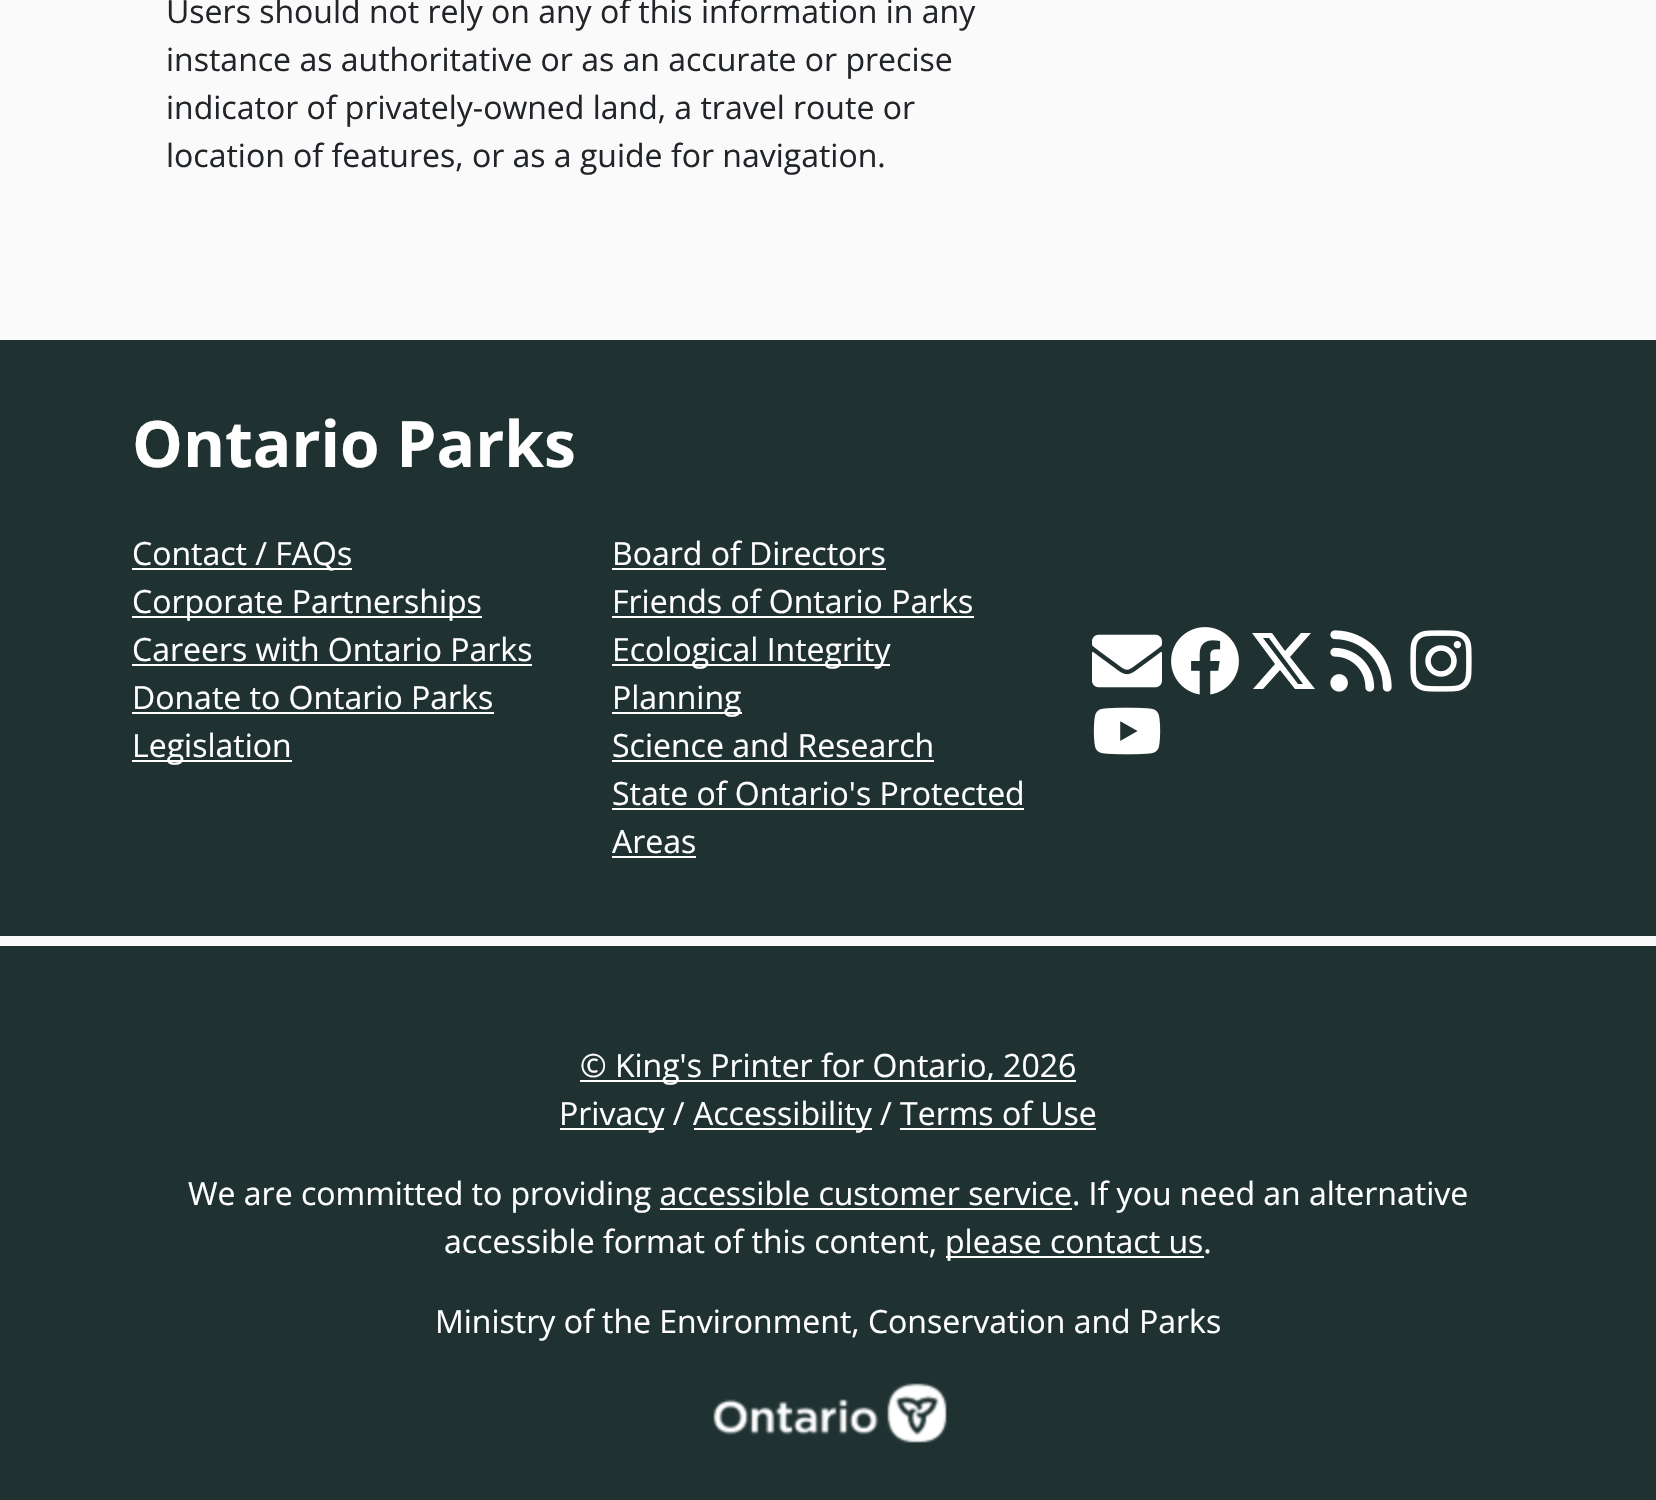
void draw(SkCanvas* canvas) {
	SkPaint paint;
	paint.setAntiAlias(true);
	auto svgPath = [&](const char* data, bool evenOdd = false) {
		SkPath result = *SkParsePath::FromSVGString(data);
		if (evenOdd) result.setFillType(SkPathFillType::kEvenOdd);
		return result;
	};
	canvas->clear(0xfffafafa);
	SkFont f1(fontMgr->matchFamilyStyle("Open Sans", SkFontStyle::Normal()), 32);
	f1.setSubpixel(true);
	paint.setColor(0xff212529);
	canvas->drawString("Users should not rely on any of this information in any", 166, 23, f1, paint);
	canvas->drawString("instance as authoritative or as an accurate or precise", 166, 71, f1, paint);
	canvas->drawString("indicator of privately-owned land, a travel route or", 166, 119, f1, paint);
	canvas->drawString("location of features, or as a guide for navigation.", 166, 167, f1, paint);
	paint.setColor(0xff1f3231);
	canvas->drawRect(SkRect::MakeXYWH(0, 340, 1656, 596), paint);
	SkFont f2(fontMgr->matchFamilyStyle("Open Sans", SkFontStyle::Bold()), 64);
	f2.setSubpixel(true);
	paint.setColor(0xffffffff);
	canvas->drawString("Ontario Parks", 132, 467, f2, paint);
	canvas->drawRect(SkRect::MakeXYWH(132, 568, 220, 2), paint);
	canvas->drawString("Contact / FAQs", 132, 565, f1, paint);
	canvas->drawRect(SkRect::MakeXYWH(132, 616, 350, 2), paint);
	canvas->drawString("Corporate Partnerships", 132, 613, f1, paint);
	canvas->drawString("Careers with Ontario Parks", 132, 661, f1, paint);
	canvas->drawRect(SkRect::MakeXYWH(132, 664, 400, 2), paint);
	canvas->drawString("Donate to Ontario Parks", 132, 709, f1, paint);
	canvas->drawRect(SkRect::MakeXYWH(132, 712, 362, 2), paint);
	canvas->drawRect(SkRect::MakeXYWH(132, 760, 160, 2), paint);
	canvas->drawString("Legislation", 132, 757, f1, paint);
	canvas->drawString("Board of Directors", 612, 565, f1, paint);
	canvas->drawRect(SkRect::MakeXYWH(612, 568, 274, 2), paint);
	canvas->drawString("Friends of Ontario Parks", 612, 613, f1, paint);
	canvas->drawRect(SkRect::MakeXYWH(612, 616, 362, 2), paint);
	canvas->drawRect(SkRect::MakeXYWH(612, 664, 278, 2), paint);
	canvas->drawString("Ecological Integrity", 612, 661, f1, paint);
	canvas->drawRect(SkRect::MakeXYWH(612, 712, 130, 2), paint);
	canvas->drawString("Planning", 612, 709, f1, paint);
	canvas->drawString("Science and Research", 612, 757, f1, paint);
	canvas->drawRect(SkRect::MakeXYWH(612, 760, 322, 2), paint);
	canvas->drawString("State of Ontario's Protected", 612, 805, f1, paint);
	canvas->drawRect(SkRect::MakeXYWH(612, 808, 412, 2), paint);
	canvas->drawString("Areas", 612, 853, f1, paint);
	canvas->drawRect(SkRect::MakeXYWH(612, 856, 84, 2), paint);
	canvas->drawImageRect(SkImages::DeferredFromEncodedData(SkData::MakeFromFileName("img1.png")), SkRect::MakeXYWH(1092, 634, 70, 54), SkSamplingOptions());
	canvas->drawImageRect(SkImages::DeferredFromEncodedData(SkData::MakeFromFileName("img2.png")), SkRect::MakeXYWH(1171, 627, 68, 68), SkSamplingOptions());
	canvas->drawPath(svgPath("M1301 633H1311L1290 657L1315 689H1295L1280 670L1263 689H1253L1275 664L1252 633H1272L1285 651ZM1298 684H1303L1269 638H1263Z"), paint);
	canvas->drawImageRect(SkImages::DeferredFromEncodedData(SkData::MakeFromFileName("img3.png")), SkRect::MakeXYWH(1330, 630, 62, 62), SkSamplingOptions());
	canvas->drawImageRect(SkImages::DeferredFromEncodedData(SkData::MakeFromFileName("img4.png")), SkRect::MakeXYWH(1410, 630, 62, 62), SkSamplingOptions());
	canvas->drawImageRect(SkImages::DeferredFromEncodedData(SkData::MakeFromFileName("img5.png")), SkRect::MakeXYWH(1093, 707, 68, 48), SkSamplingOptions());
	paint.setColor(0xff1f3231);
	canvas->drawRect(SkRect::MakeXYWH(0, 946, 1656, 554), paint);
	paint.setColor(0xffffffff);
	canvas->drawRect(SkRect::MakeXYWH(580, 1080, 496, 2), paint);
	canvas->drawString("© King's Printer for Ontario, 2026", 580, 1077, f1, paint);
	canvas->drawRect(SkRect::MakeXYWH(560, 1128, 104, 2), paint);
	canvas->drawString("Privacy /", 559, 1125, f1, paint);
	canvas->drawRect(SkRect::MakeXYWH(694, 1128, 178, 2), paint);
	canvas->drawString("Accessibility / Terms of Use", 693, 1125, f1, paint);
	canvas->drawRect(SkRect::MakeXYWH(900, 1128, 196, 2), paint);
	canvas->drawString("We are committed to providing accessible customer service. If you need an alternative", 188, 1205, f1, paint);
	canvas->drawRect(SkRect::MakeXYWH(660, 1208, 412, 2), paint);
	canvas->drawString("accessible format of this content,", 444, 1253, f1, paint);
	canvas->drawRect(SkRect::MakeXYWH(946, 1256, 258, 2), paint);
	canvas->drawString("please contact us.", 945, 1253, f1, paint);
	canvas->drawString("Ministry of the Environment, Conservation and Parks", 435, 1333, f1, paint);
	canvas->drawImageRect(SkImages::DeferredFromEncodedData(SkData::MakeFromFileName("img6.png")), SkRect::MakeXYWH(713, 1383, 234, 60), SkSamplingOptions());
}
